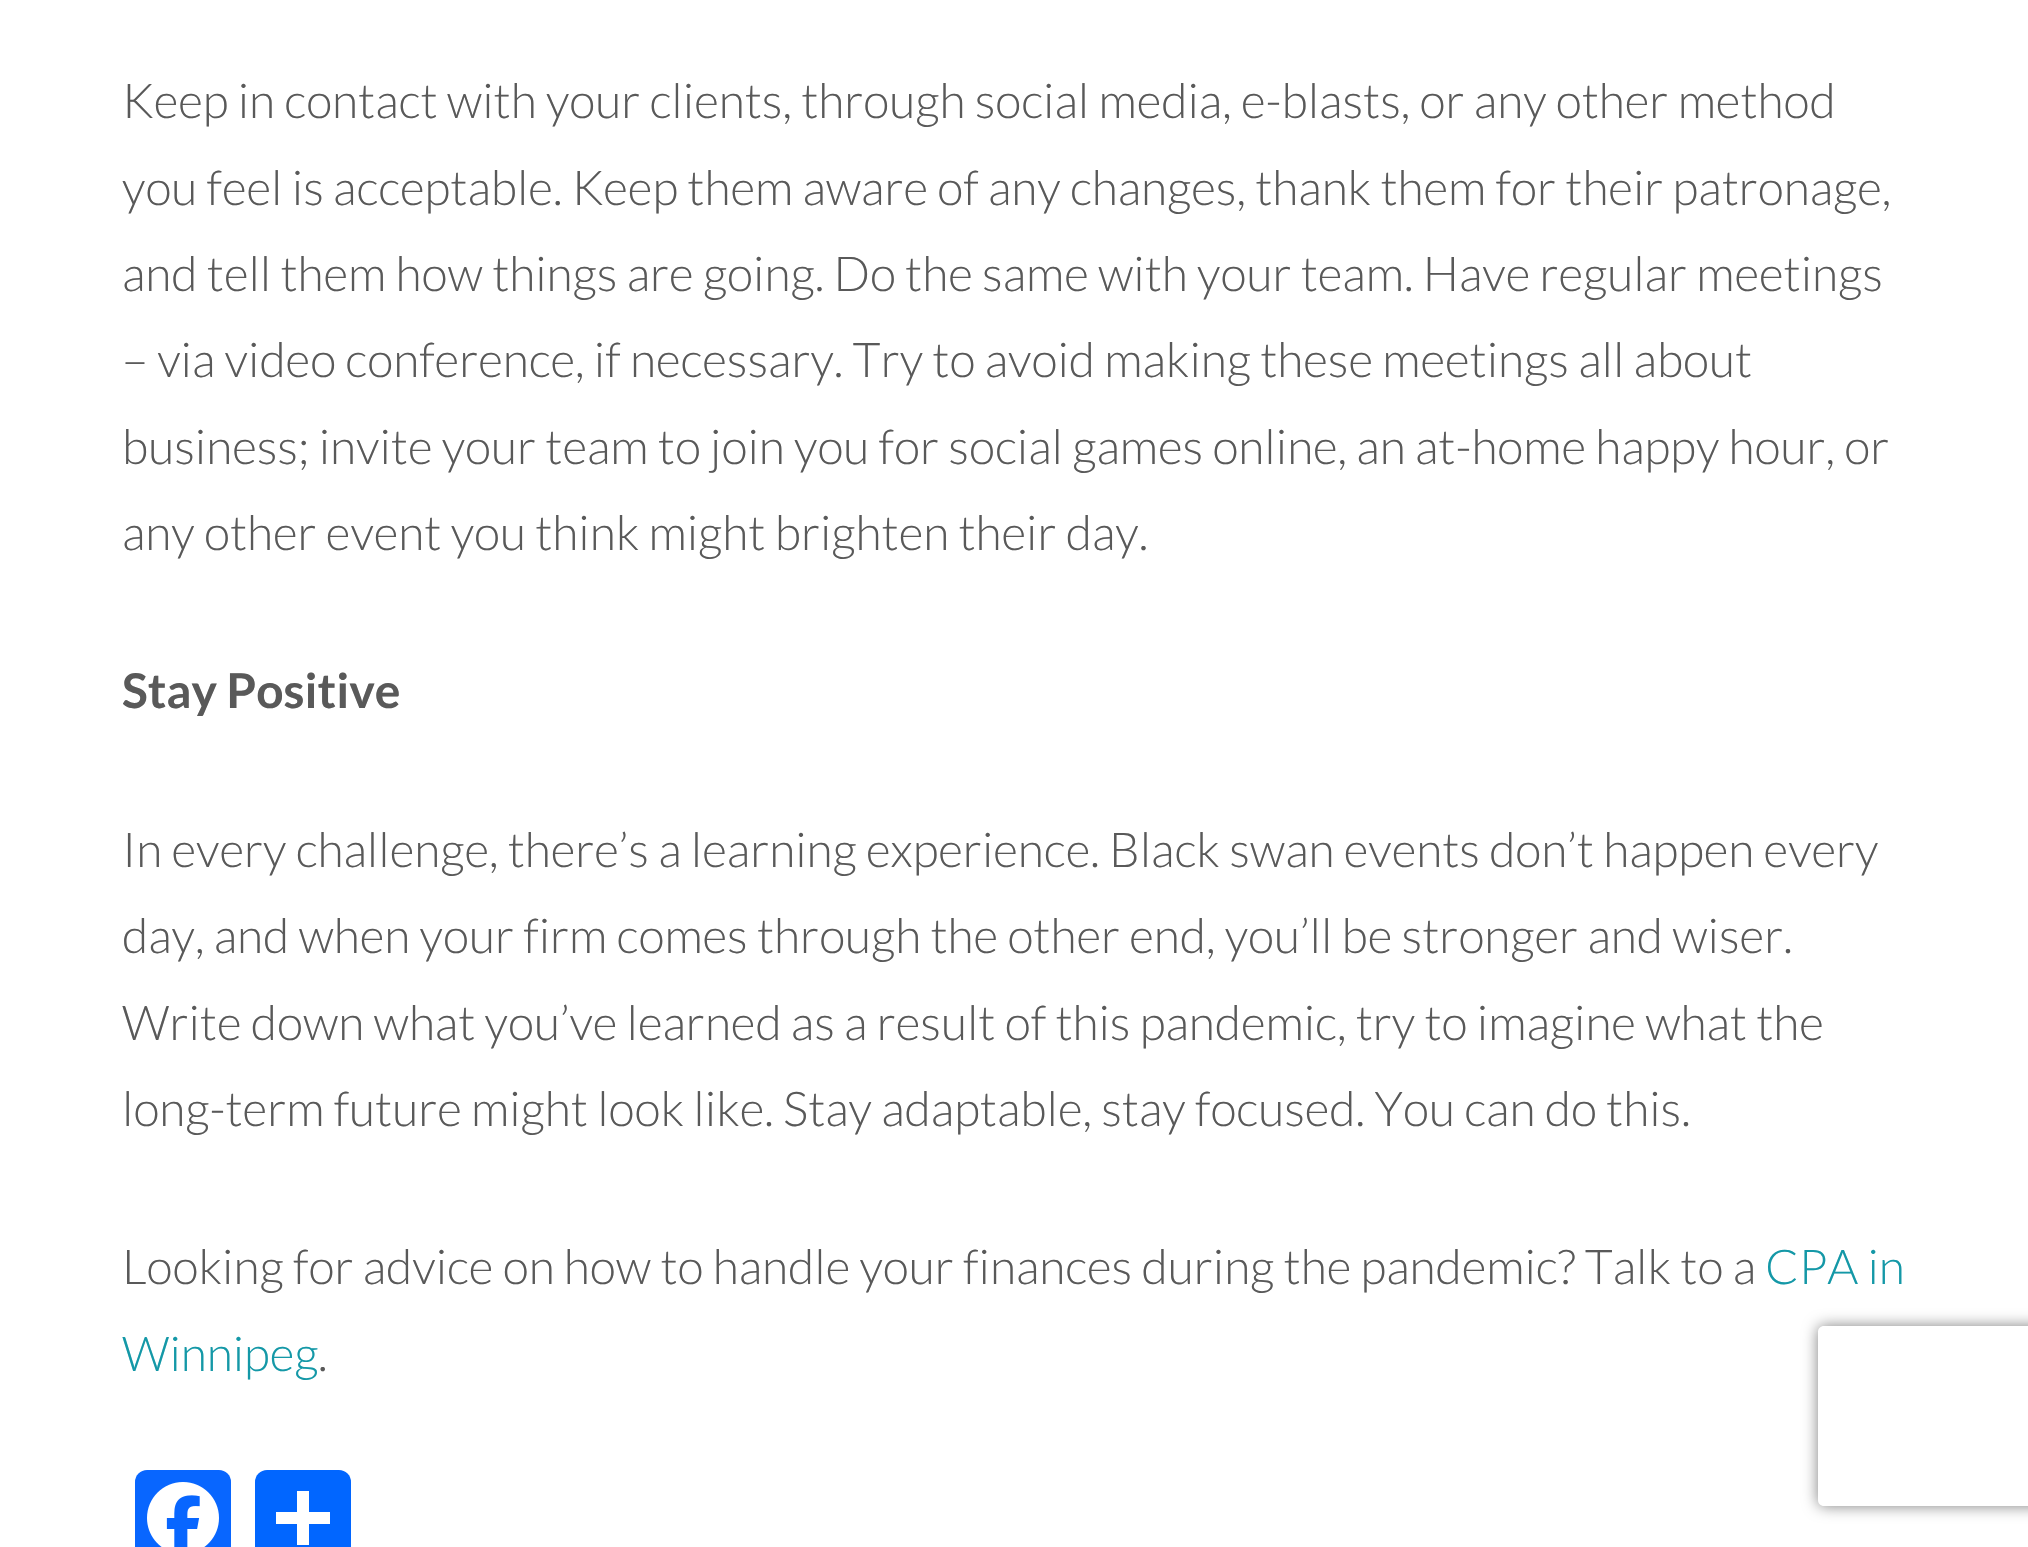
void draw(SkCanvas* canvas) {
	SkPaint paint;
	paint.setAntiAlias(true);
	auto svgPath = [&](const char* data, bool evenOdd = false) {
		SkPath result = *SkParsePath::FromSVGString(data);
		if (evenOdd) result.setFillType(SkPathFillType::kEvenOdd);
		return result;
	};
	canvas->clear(0xffffffff);
	SkFont f1(fontMgr->matchFamilyStyle("Lato", SkFontStyle(300, SkFontStyle::kNormal_Width, SkFontStyle::kUpright_Slant)), 48);
	f1.setSubpixel(true);
	paint.setColor(0xff595959);
	canvas->drawString("Keep in contact with your clients, through social media, e-blasts, or any other method", 122, 118, f1, paint);
	canvas->drawString("you feel is acceptable. Keep them aware of any changes, thank them for their patronage,", 122, 205, f1, paint);
	canvas->drawString("and tell them how things are going. Do the same with your team. Have regular meetings", 122, 291, f1, paint);
	canvas->drawString("– via video conference, if necessary. Try to avoid making these meetings all about", 122, 377, f1, paint);
	canvas->drawString("business; invite your team to join you for social games online, an at-home happy hour, or", 122, 464, f1, paint);
	canvas->drawString("any other event you think might brighten their day.", 122, 550, f1, paint);
	SkFont f2(fontMgr->matchFamilyStyle("Lato", SkFontStyle::Bold()), 48);
	f2.setSubpixel(true);
	canvas->drawString("Stay Positive", 122, 708, f2, paint);
	canvas->drawString("In every challenge, there’s a learning experience. Black swan events don’t happen every", 122, 867, f1, paint);
	canvas->drawString("day, and when your firm comes through the other end, you’ll be stronger and wiser.", 122, 953, f1, paint);
	canvas->drawString("Write down what you’ve learned as a result of this pandemic, try to imagine what the", 122, 1040, f1, paint);
	canvas->drawString("long-term future might look like. Stay adaptable, stay focused. You can do this.", 122, 1126, f1, paint);
	canvas->drawString("Looking for advice on how to handle your finances during the pandemic? Talk to a", 122, 1284, f1, paint);
	paint.setColor(0xff1498a7);
	canvas->drawString("CPA in", 1765, 1284, f1, paint);
	canvas->drawString("Winnipeg", 122, 1371, f1, paint);
	paint.setColor(0xff595959);
	canvas->drawString(".", 318, 1371, f1, paint);
	paint.setColor(0xff0866ff);
	canvas->drawRoundRect(SkRect::MakeXYWH(135, 1470, 96, 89), 12, 12, paint);
	canvas->drawImageRect(SkImages::DeferredFromEncodedData(SkData::MakeFromFileName("img1.png")), SkRect::MakeXYWH(147, 1482, 72, 65), SkSamplingOptions());
	paint.setColor(0xff0166ff);
	canvas->drawRoundRect(SkRect::MakeXYWH(255, 1470, 96, 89), 12, 12, paint);
	paint.setColor(0xffffffff);
	canvas->drawRect(SkRect::MakeXYWH(297, 1491, 12, 54), paint);
	canvas->drawRect(SkRect::MakeXYWH(276, 1512, 54, 12), paint);
	canvas->save();
	canvas->clipPath(svgPath("M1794 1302H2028V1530H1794ZM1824 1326H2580C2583.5 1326 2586 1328.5 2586 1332V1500C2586 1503.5 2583.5 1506 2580 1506H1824C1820.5 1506 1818 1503.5 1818 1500V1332C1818 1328.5 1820.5 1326 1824 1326Z", true), true);
	paint.setColor(0xff808080);
	paint.setMaskFilter(SkMaskFilter::MakeBlur(kNormal_SkBlurStyle, 7.5));
	canvas->drawRoundRect(SkRect::MakeXYWH(1818, 1326, 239, 180), 6, 6, paint);
	paint.setMaskFilter(nullptr);
	canvas->restore();
}
